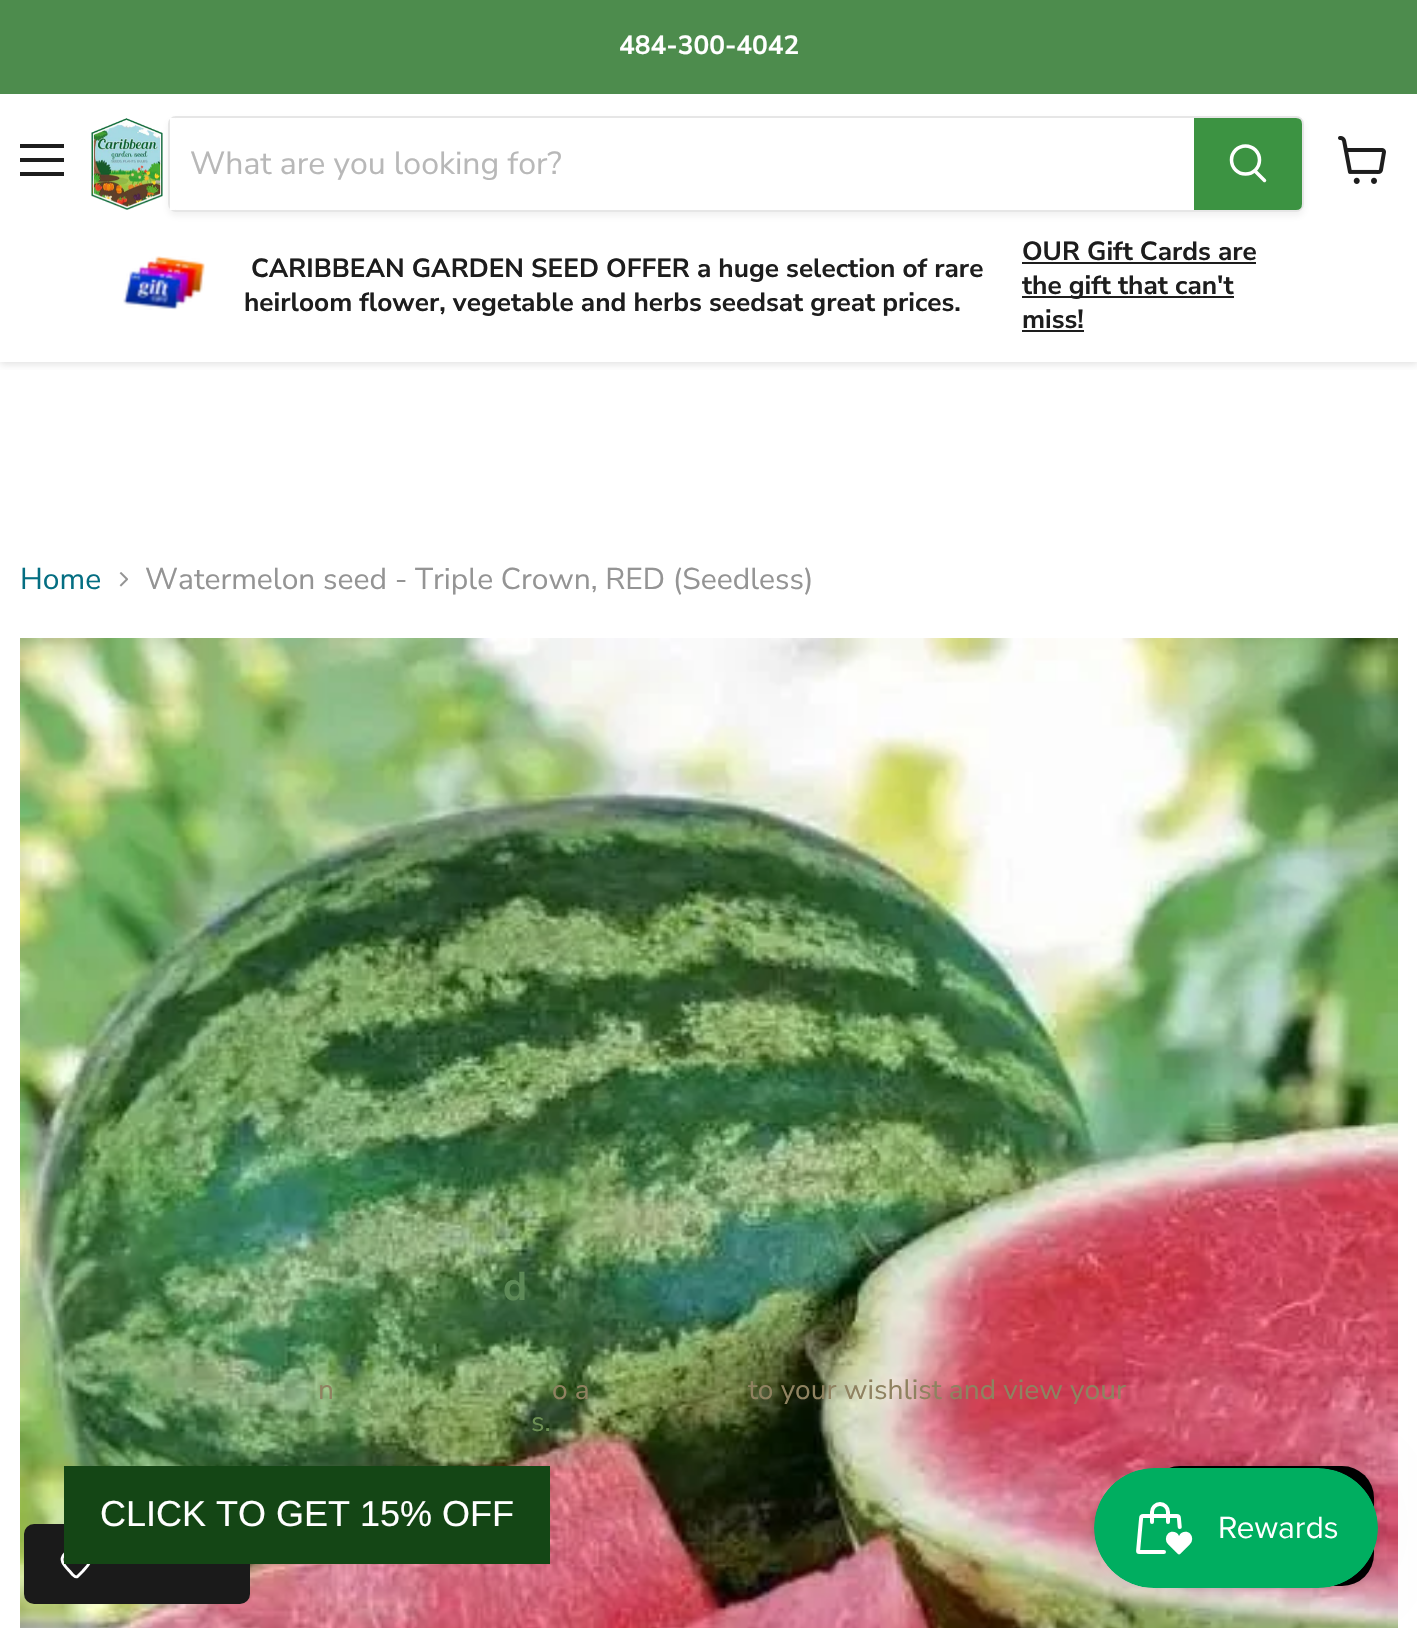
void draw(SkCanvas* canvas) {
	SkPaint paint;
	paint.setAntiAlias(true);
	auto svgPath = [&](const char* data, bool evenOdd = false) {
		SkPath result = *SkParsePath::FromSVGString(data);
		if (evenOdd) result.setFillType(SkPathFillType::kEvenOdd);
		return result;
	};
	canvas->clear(0xffffffff);
	canvas->save();
	canvas->clipRect(SkRect::MakeXYWH(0, 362, 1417, 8));
	paint.setColor(0x40808080);
	paint.setMaskFilter(SkMaskFilter::MakeBlur(kNormal_SkBlurStyle, 4));
	canvas->drawRect(SkRect::MakeXYWH(0, 96, 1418, 268), paint);
	paint.setMaskFilter(nullptr);
	canvas->restore();
	paint.setColor(0xff4d8c4d);
	canvas->drawRect(SkRect::MakeXYWH(0, 0, 1417, 94), paint);
	SkFont f1(fontMgr->matchFamilyStyle("Nunito Sans", SkFontStyle::Bold()), 26.25);
	f1.setSubpixel(true);
	paint.setColor(0xffffffff);
	canvas->drawString("484-300-4042", 619, 54, f1, paint);
	paint.setColor(0xff1d1d1d);
	canvas->drawRect(SkRect::MakeXYWH(20, 144, 44, 4), paint);
	canvas->drawRect(SkRect::MakeXYWH(20, 158, 44, 4), paint);
	canvas->drawRect(SkRect::MakeXYWH(20, 172, 44, 4), paint);
	canvas->drawImageRect(SkImages::DeferredFromEncodedData(SkData::MakeFromFileName("img1.png")), SkRect::MakeXYWH(91, 118, 72, 92), SkSamplingOptions());
	canvas->save();
	canvas->clipPath(svgPath("M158 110H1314V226H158ZM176 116H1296C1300.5 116 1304 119.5 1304 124V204C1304 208.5 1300.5 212 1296 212H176C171.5 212 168 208.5 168 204V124C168 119.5 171.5 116 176 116Z", true), true);
	paint.setColor(0x1c808080);
	paint.setMaskFilter(SkMaskFilter::MakeBlur(kNormal_SkBlurStyle, 3));
	canvas->drawRoundRect(SkRect::MakeXYWH(168, 120, 1136, 96), 8, 8, paint);
	paint.setMaskFilter(nullptr);
	canvas->restore();
	paint.setStroke(true);
	paint.setStrokeWidth(2);
	paint.setColor(0x33808080);
	canvas->drawRoundRect(SkRect::MakeXYWH(169, 117, 1134, 94), 7, 7, paint);
	paint.setStroke(false);
	paint.setColor(0xffffffff);
	canvas->drawRect(SkRect::MakeXYWH(170, 118, 5, 92), paint);
	SkFont f2(fontMgr->matchFamilyStyle("Nunito Sans", SkFontStyle::Normal()), 32);
	f2.setSubpixel(true);
	paint.setColor(0xffb8b8b8);
	canvas->drawString("What are you looking for?", 190, 174, f2, paint);
	paint.setColor(0xff3c9342);
	canvas->drawPath(svgPath("M1195 119H1296C1299 119 1301 121 1301 124V204C1301 207 1299 209 1296 209H1195Z"), paint);
	paint.setStroke(true);
	canvas->drawPath(svgPath("M1195 119H1296C1299 119 1301 121 1301 124V204C1301 207 1299 209 1296 209H1195Z"), paint);
	paint.setStrokeWidth(3.5);
	paint.setStrokeCap(SkPaint::kRound_Cap);
	paint.setColor(0xffffffff);
	canvas->drawPath(svgPath("M1264.5 180.5L1255 171"), paint);
	paint.setStrokeCap(SkPaint::kButt_Cap);
	canvas->drawCircle(1245.5, 160, 14, paint);
	canvas->drawImageRect(SkImages::DeferredFromEncodedData(SkData::MakeFromFileName("img2.png")), SkRect::MakeXYWH(123, 256, 82, 54), SkSamplingOptions());
	paint.setStroke(false);
	paint.setColor(0xff1d1d1d);
	canvas->drawString("CARIBBEAN GARDEN SEED OFFER a huge selection of rare", 251, 277, f1, paint);
	canvas->drawString("heirloom flower, vegetable and herbs seedsat great prices.", 244, 311, f1, paint);
	canvas->drawString("OUR Gift Cards are", 1022, 260, f1, paint);
	canvas->drawRect(SkRect::MakeXYWH(1022, 262, 234, 2), paint);
	canvas->drawRect(SkRect::MakeXYWH(1022, 296, 212, 2), paint);
	canvas->drawString("the gift that can't", 1022, 294, f1, paint);
	canvas->drawString("miss!", 1022, 328, f1, paint);
	canvas->drawRect(SkRect::MakeXYWH(1022, 330, 62, 2), paint);
	canvas->drawImageRect(SkImages::DeferredFromEncodedData(SkData::MakeFromFileName("img3.png")), SkRect::MakeXYWH(1338, 136, 48, 48), SkSamplingOptions());
	SkFont f3(fontMgr->matchFamilyStyle("Nunito Sans", SkFontStyle::Normal()), 30);
	f3.setSubpixel(true);
	paint.setColor(0xff046e82);
	canvas->drawString("Home", 20, 589, f3, paint);
	canvas->drawImageRect(SkImages::DeferredFromEncodedData(SkData::MakeFromFileName("img4.png")), SkRect::MakeXYWH(119, 572, 9, 15), SkSamplingOptions());
	paint.setColor(0xff949494);
	canvas->drawString("Watermelon seed - Triple Crown, RED (Seedless)", 145, 589, f3, paint);
	canvas->drawImageRect(SkImages::DeferredFromEncodedData(SkData::MakeFromFileName("img5.png")), SkRect::MakeXYWH(20, 638, 1378, 990), SkSamplingOptions());
	SkFont f4(fontMgr->matchFamilyStyle("Nunito Sans", SkFontStyle::Bold()), 40);
	f4.setSubpixel(true);
	paint.setColor(0xff5d8957);
	canvas->drawString("d", 503, 1300, f4, paint);
	SkFont f5(fontMgr->matchFamilyStyle("Nunito Sans", SkFontStyle::Normal()), 28.1);
	f5.setSubpixel(true);
	paint.setColor(0xff8f8260);
	canvas->drawString("n", 318, 1399, f5, paint);
	canvas->drawString("o a", 552, 1399, f5, paint);
	canvas->drawString("to your wishlist and view your", 748, 1399, f5, paint);
	paint.setColor(0xff6d8f54);
	canvas->drawString("s.", 531, 1431, f5, paint);
	paint.setColor(0xff1a1a1a);
	canvas->drawRoundRect(SkRect::MakeXYWH(24, 1524, 226, 80), 10, 10, paint);
	paint.setStroke(true);
	paint.setStrokeWidth(2.9);
	paint.setStrokeCap(SkPaint::kRound_Cap);
	paint.setStrokeJoin(SkPaint::kRound_Join);
	paint.setColor(0xffffffff);
	canvas->drawPath(svgPath("M64.5 1554C68 1550 73 1551.5 76 1555C83 1547.5 92.5 1554.5 89.5 1562.5C88 1566 85 1568.5 83 1571L77.5 1576.5C75.5 1578 74 1575.5 72.5 1574.5L69.5 1571C65 1566 58.5 1560.5 64.5 1554Z"), paint);
	paint.setStroke(false);
	paint.setColor(0x26000000);
	paint.setMaskFilter(SkMaskFilter::MakeBlur(kNormal_SkBlurStyle, 5));
	canvas->drawRoundRect(SkRect::MakeXYWH(1148, 1466, 226, 120), 32, 32, paint);
	paint.setMaskFilter(nullptr);
	paint.setColor(0xff000000);
	canvas->drawRoundRect(SkRect::MakeXYWH(1148, 1466, 226, 120), 32, 32, paint);
	paint.setColor(0x0d000000);
	paint.setMaskFilter(SkMaskFilter::MakeBlur(kNormal_SkBlurStyle, 25));
	canvas->drawRoundRect(SkRect::MakeXYWH(1094, 1468, 284, 120), 60, 60, paint);
	paint.setMaskFilter(nullptr);
	canvas->drawImageRect(SkImages::DeferredFromEncodedData(SkData::MakeFromFileName("img6.png")), SkRect::MakeXYWH(1094, 1468, 284, 120), SkSamplingOptions());
	paint.setColor(0xff144615);
	canvas->drawRect(SkRect::MakeXYWH(64, 1466, 486, 98), paint);
	SkFont f6(fontMgr->matchFamilyStyle("Liberation Sans", SkFontStyle::Normal()), 36);
	f6.setSubpixel(true);
	paint.setColor(0xffffffff);
	canvas->drawString("CLICK TO GET 15% OFF", 100, 1526, f6, paint);
}
